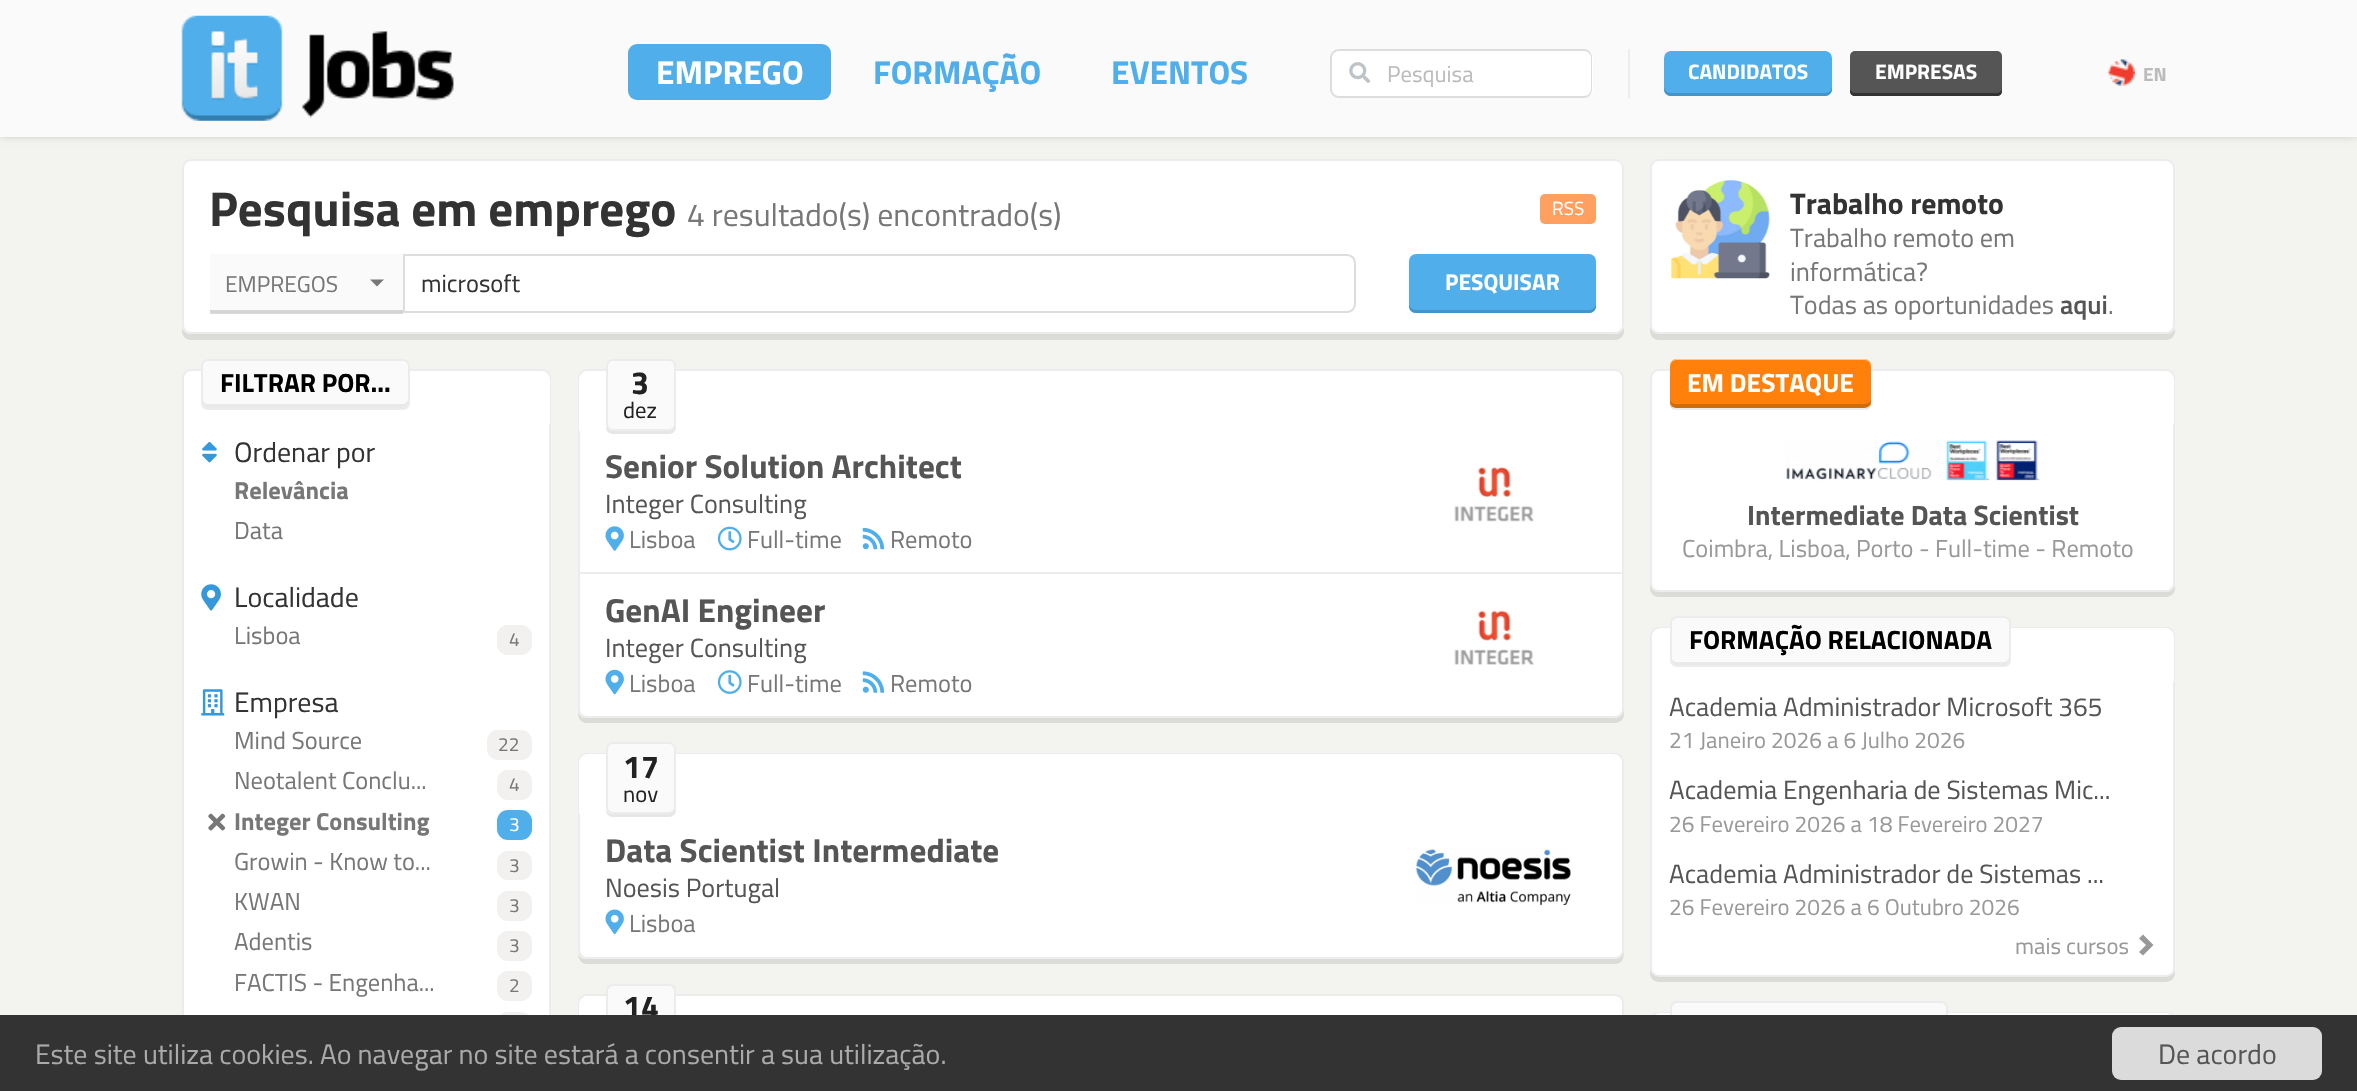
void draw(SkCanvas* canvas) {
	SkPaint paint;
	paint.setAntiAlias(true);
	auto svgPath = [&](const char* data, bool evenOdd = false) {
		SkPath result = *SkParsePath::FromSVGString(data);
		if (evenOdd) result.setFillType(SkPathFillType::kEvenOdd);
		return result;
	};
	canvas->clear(0xfff3f3f0);
	paint.setColor(0x66000000);
	paint.setMaskFilter(SkMaskFilter::MakeBlur(kNormal_SkBlurStyle, 5));
	canvas->drawRect(SkRect::MakeXYWH(0, -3, 2357, 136), paint);
	paint.setMaskFilter(nullptr);
	paint.setColor(0xfffafafa);
	canvas->drawRect(SkRect::MakeXYWH(0, 0, 2357, 137), paint);
	canvas->drawImageRect(SkImages::DeferredFromEncodedData(SkData::MakeFromFileName("img1.png")), SkRect::MakeXYWH(181, 15, 273, 106), SkSamplingOptions());
	paint.setColor(0xff50afea);
	canvas->drawRoundRect(SkRect::MakeXYWH(628, 44, 203, 56), 9, 9, paint);
	SkFont f1(fontMgr->matchFamilyStyle("Titillium Web", SkFontStyle::Bold()), 33.25);
	f1.setSubpixel(true);
	paint.setColor(0xffffffff);
	canvas->drawString("EMPREGO", 656, 84, f1, paint);
	paint.setColor(0xff50afea);
	canvas->drawString("FORMAÇÃO", 873, 84, f1, paint);
	canvas->drawString("EVENTOS", 1111, 84, f1, paint);
	paint.setColor(0xffeceded);
	canvas->drawRect(SkRect::MakeXYWH(1628, 49, 2, 49), paint);
	paint.setColor(0xffffffff);
	canvas->drawPath(svgPath("M1339 49H1388V98H1339C1334 98 1330 94 1330 89V58C1330 53 1334 49 1339 49Z"), paint);
	paint.setColor(0xffdddddd);
	canvas->drawPath(svgPath("M1339 49H1388V98H1339C1334 98 1330 94 1330 89V58C1330 53 1334 49 1339 49ZM1339 51H1388V96H1339C1335 96 1332 93 1332 89V58C1332 54 1335 51 1339 51Z", true), paint);
	canvas->drawImageRect(SkImages::DeferredFromEncodedData(SkData::MakeFromFileName("img2.png")), SkRect::MakeXYWH(1349, 62, 22, 21), SkSamplingOptions());
	paint.setColor(0xffffffff);
	canvas->drawPath(svgPath("M1388 49H1584C1589 49 1593 53 1593 58V89C1593 94 1589 98 1584 98H1388Z"), paint);
	paint.setColor(0xffdddddd);
	canvas->drawPath(svgPath("M1388 49H1584C1589 49 1592 53 1592 58V89C1592 94 1589 98 1584 98H1388ZM1388 51H1584C1588 51 1591 54 1591 58V89C1591 93 1588 96 1584 96H1388Z", true), paint);
	SkFont f2(fontMgr->matchFamilyStyle("Titillium Web", SkFontStyle::Normal()), 22.75);
	f2.setSubpixel(true);
	paint.setColor(0xffbbbbbb);
	canvas->drawString("Pesquisa", 1387, 82, f2, paint);
	paint.setColor(0xff50afea);
	canvas->drawRoundRect(SkRect::MakeXYWH(1664, 51, 168, 45), 7, 7, paint);
	paint.setColor(0xff4594c7);
	canvas->drawPath(svgPath("M1664 86V89C1664 93 1667 96 1671 96H1825C1829 96 1832 93 1832 89V86C1832 90 1829 93 1825 93H1671C1667 93 1664 90 1664 86Z"), paint);
	SkFont f3(fontMgr->matchFamilyStyle("Titillium Web", SkFontStyle::Bold()), 21);
	f3.setSubpixel(true);
	paint.setColor(0xffffffff);
	canvas->drawString("CANDIDATOS", 1688, 79, f3, paint);
	paint.setColor(0xff555555);
	canvas->drawRoundRect(SkRect::MakeXYWH(1850, 51, 152, 45), 5, 5, paint);
	paint.setColor(0xff333333);
	canvas->drawPath(svgPath("M1850 88V91C1850 94 1852 96 1855 96H1997C2000 96 2002 94 2002 91V88C2002 90 2000 93 1997 93H1855C1852 93 1850 90 1850 88Z"), paint);
	paint.setColor(0xffffffff);
	canvas->drawString("EMPRESAS", 1875, 79, f3, paint);
	canvas->drawImageRect(SkImages::DeferredFromEncodedData(SkData::MakeFromFileName("img3.png")), SkRect::MakeXYWH(2108, 59, 27, 27), SkSamplingOptions());
	SkFont f4(fontMgr->matchFamilyStyle("Titillium Web", SkFontStyle::Bold()), 19);
	f4.setSubpixel(true);
	paint.setColor(0xffbbbbbb);
	canvas->drawString("EN", 2143, 81, f4, paint);
	paint.setColor(0xffdbdbd8);
	canvas->drawPath(svgPath("M182 326V331C182 336 186 340 191 340H1615C1620 340 1624 336 1624 331V326C1624 330 1620 334 1615 334H191C186 334 182 330 182 326Z"), paint);
	paint.setColor(0xffffffff);
	canvas->drawRoundRect(SkRect::MakeXYWH(182, 159, 1442, 175), 9, 9, paint);
	paint.setColor(0xffd9d9d9);
	canvas->drawRect(SkRect::MakeXYWH(210, 313, 193, 1), paint);
	paint.setStroke(true);
	paint.setStrokeWidth(2);
	paint.setColor(0xffedecec);
	canvas->drawRoundRect(SkRect::MakeXYWH(183, 160, 1440, 173), 8, 8, paint);
	SkFont f5(fontMgr->matchFamilyStyle("Titillium Web", SkFontStyle::Bold()), 49);
	f5.setSubpixel(true);
	paint.setStroke(false);
	paint.setColor(0xff333333);
	canvas->drawString("Pesquisa em emprego", 209, 226, f5, paint);
	SkFont f6(fontMgr->matchFamilyStyle("Titillium Web", SkFontStyle::Normal()), 31.8);
	f6.setSubpixel(true);
	paint.setColor(0xff777777);
	canvas->drawString("4 resultado(s) encontrado(s)", 687, 226, f6, paint);
	paint.setColor(0xffffa060);
	canvas->drawRoundRect(SkRect::MakeXYWH(1540, 194, 56, 30), 5, 5, paint);
	SkFont f7(fontMgr->matchFamilyStyle("Titillium Web", SkFontStyle::Normal()), 19);
	f7.setSubpixel(true);
	paint.setColor(0xffffffff);
	canvas->drawString("RSS", 1552, 215, f7, paint);
	paint.setColor(0xfffafafa);
	canvas->drawRect(SkRect::MakeXYWH(210, 254, 193, 56), paint);
	paint.setColor(0xffd5d5d5);
	canvas->drawRect(SkRect::MakeXYWH(210, 310, 193, 3), paint);
	paint.setColor(0xff777777);
	canvas->drawString("EMPREGOS", 225, 292, f2, paint);
	canvas->drawPath(svgPath("M370 279.5H384L377 286.5Z"), paint);
	paint.setStroke(true);
	paint.setColor(0xffdddddd);
	canvas->drawPath(svgPath("M404 255H1347C1351.5 255 1355 258.5 1355 263V304C1355 308.5 1351.5 312 1347 312H404Z"), paint);
	SkFont f8(fontMgr->matchFamilyStyle("Titillium Web", SkFontStyle::Normal()), 24.5);
	f8.setSubpixel(true);
	paint.setStroke(false);
	paint.setColor(0xff333333);
	canvas->drawString("microsoft", 421, 292, f8, paint);
	paint.setColor(0xff50afea);
	canvas->drawRoundRect(SkRect::MakeXYWH(1409, 254, 187, 59), 7, 7, paint);
	paint.setColor(0xff4594c7);
	canvas->drawPath(svgPath("M1409 303V306C1409 310 1412 313 1416 313H1589C1593 313 1596 310 1596 306V303C1596 307 1593 310 1589 310H1416C1412 310 1409 307 1409 303Z"), paint);
	SkFont f9(fontMgr->matchFamilyStyle("Titillium Web", SkFontStyle::Bold()), 22.75);
	f9.setSubpixel(true);
	paint.setColor(0xffffffff);
	canvas->drawString("PESQUISAR", 1445, 290, f9, paint);
	paint.setColor(0xffdbdbd8);
	canvas->drawPath(svgPath("M1650 172V331C1650 336 1654 340 1659 340H2166C2171 340 2175 336 2175 331V328C2174 331 2171 334 2166 334H1659C1654 334 1650 330 1650 326Z"), paint);
	paint.setColor(0xffffffff);
	canvas->drawRoundRect(SkRect::MakeXYWH(1651, 160, 523, 173), 8, 8, paint);
	paint.setStroke(true);
	paint.setColor(0xffedecec);
	canvas->drawRoundRect(SkRect::MakeXYWH(1651, 160, 523, 173), 8, 8, paint);
	canvas->drawImageRect(SkImages::DeferredFromEncodedData(SkData::MakeFromFileName("img4.png")), SkRect::MakeXYWH(1671, 180, 99, 99), SkSamplingOptions());
	SkFont f10(fontMgr->matchFamilyStyle("Titillium Web", SkFontStyle::Bold()), 29.75);
	f10.setSubpixel(true);
	paint.setStroke(false);
	paint.setColor(0xff333333);
	canvas->drawString("Trabalho remoto", 1790, 214, f10, paint);
	SkFont f11(fontMgr->matchFamilyStyle("Titillium Web", SkFontStyle::Normal()), 26.25);
	f11.setSubpixel(true);
	paint.setColor(0xff777777);
	canvas->drawString("Trabalho remoto em", 1790, 247, f11, paint);
	canvas->drawString("informática?", 1790, 281, f11, paint);
	canvas->drawString("Todas as oportunidades", 1790, 314, f11, paint);
	SkFont f12(fontMgr->matchFamilyStyle("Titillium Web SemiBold", SkFontStyle(600, SkFontStyle::kNormal_Width, SkFontStyle::kUpright_Slant)), 26.25);
	f12.setSubpixel(true);
	paint.setColor(0xff555555);
	canvas->drawString("aqui", 2060, 314, f12, paint);
	paint.setColor(0xff777777);
	canvas->drawString(".", 2108, 314, f11, paint);
	paint.setColor(0xffffffff);
	canvas->drawRoundRect(SkRect::MakeXYWH(183, 370, 367, 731), 8, 8, paint);
	paint.setStroke(true);
	paint.setColor(0xffedecec);
	canvas->drawRoundRect(SkRect::MakeXYWH(183, 370, 367, 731), 8, 8, paint);
	paint.setStroke(false);
	paint.setColor(0xffffffff);
	canvas->drawPath(svgPath("M193 371H541C546 371 550 375 550 380V424H184V380C184 375 188 371 193 371Z"), paint);
	paint.setColor(0xfffafafa);
	canvas->drawRoundRect(SkRect::MakeXYWH(201, 359, 209, 51), 7, 7, paint);
	paint.setColor(0xffe9e9e9);
	canvas->drawPath(svgPath("M203 399V403C203 406 205 408 208 408H403C406 408 408 406 408 403V399C408 402 405 404 402 404H208C205 404 203 402 203 399Z"), paint);
	paint.setStroke(true);
	paint.setColor(0xffedecec);
	canvas->drawRoundRect(SkRect::MakeXYWH(202, 360, 207, 49), 6, 6, paint);
	SkFont f13(fontMgr->matchFamilyStyle("Titillium Web", SkFontStyle::Bold()), 26.25);
	f13.setSubpixel(true);
	paint.setStroke(false);
	paint.setColor(0xff000000);
	canvas->drawString("FILTRAR POR...", 220, 392, f13, paint);
	canvas->drawImageRect(SkImages::DeferredFromEncodedData(SkData::MakeFromFileName("img5.png")), SkRect::MakeXYWH(202, 442, 15, 21), SkSamplingOptions());
	SkFont f14(fontMgr->matchFamilyStyle("Titillium Web", SkFontStyle::Normal()), 28);
	f14.setSubpixel(true);
	paint.setColor(0xff333333);
	canvas->drawString("Ordenar por", 234, 462, f14, paint);
	SkFont f15(fontMgr->matchFamilyStyle("Titillium Web", SkFontStyle::Bold()), 24.5);
	f15.setSubpixel(true);
	paint.setColor(0xff777777);
	canvas->drawString("Relevância", 234, 499, f15, paint);
	canvas->drawString("Data", 234, 539, f8, paint);
	canvas->drawImageRect(SkImages::DeferredFromEncodedData(SkData::MakeFromFileName("img6.png")), SkRect::MakeXYWH(201, 584, 20, 27), SkSamplingOptions());
	paint.setColor(0xff333333);
	canvas->drawString("Localidade", 234, 607, f14, paint);
	paint.setColor(0xff777777);
	canvas->drawString("Lisboa", 234, 644, f8, paint);
	paint.setColor(0xfff3f0f0);
	canvas->drawRoundRect(SkRect::MakeXYWH(497, 625, 35, 30), 11, 11, paint);
	paint.setColor(0xff777777);
	canvas->drawString("4", 509, 646, f7, paint);
	canvas->drawImageRect(SkImages::DeferredFromEncodedData(SkData::MakeFromFileName("img7.png")), SkRect::MakeXYWH(201, 689, 24, 27), SkSamplingOptions());
	paint.setColor(0xff333333);
	canvas->drawString("Empresa", 234, 712, f14, paint);
	paint.setColor(0xff777777);
	canvas->drawString("Mind Source", 234, 749, f8, paint);
	paint.setColor(0xfff3f0f0);
	canvas->drawRoundRect(SkRect::MakeXYWH(487, 730, 45, 30), 11, 11, paint);
	paint.setColor(0xff777777);
	canvas->drawString("22", 498, 751, f7, paint);
	canvas->drawString("Neotalent Conclu...", 234, 789, f8, paint);
	paint.setColor(0xfff3f0f0);
	canvas->drawRoundRect(SkRect::MakeXYWH(497, 770, 35, 30), 11, 11, paint);
	paint.setColor(0xff777777);
	canvas->drawString("4", 509, 791, f7, paint);
	canvas->drawImageRect(SkImages::DeferredFromEncodedData(SkData::MakeFromFileName("img8.png")), SkRect::MakeXYWH(208, 813, 18, 18), SkSamplingOptions());
	canvas->drawString("Integer Consulting", 234, 830, f15, paint);
	paint.setColor(0xff50afea);
	canvas->drawRoundRect(SkRect::MakeXYWH(497, 810, 35, 30), 11, 11, paint);
	paint.setColor(0xffffffff);
	canvas->drawString("3", 509, 831, f7, paint);
	paint.setColor(0xff777777);
	canvas->drawString("Growin - Know to...", 234, 870, f8, paint);
	paint.setColor(0xfff3f0f0);
	canvas->drawRoundRect(SkRect::MakeXYWH(497, 851, 35, 29), 11, 11, paint);
	paint.setColor(0xff777777);
	canvas->drawString("3", 509, 872, f7, paint);
	canvas->drawString("KWAN", 234, 910, f8, paint);
	paint.setColor(0xfff3f0f0);
	canvas->drawRoundRect(SkRect::MakeXYWH(497, 891, 35, 30), 11, 11, paint);
	paint.setColor(0xff777777);
	canvas->drawString("3", 509, 912, f7, paint);
	canvas->drawString("Adentis", 234, 950, f8, paint);
	paint.setColor(0xfff3f0f0);
	canvas->drawRoundRect(SkRect::MakeXYWH(497, 931, 35, 30), 11, 11, paint);
	paint.setColor(0xff777777);
	canvas->drawString("3", 509, 952, f7, paint);
	canvas->drawString("FACTIS - Engenha...", 234, 991, f8, paint);
	paint.setColor(0xfff3f0f0);
	canvas->drawRoundRect(SkRect::MakeXYWH(497, 971, 35, 30), 11, 11, paint);
	paint.setColor(0xff777777);
	canvas->drawString("2", 509, 992, f7, paint);
	paint.setColor(0xfff3f0f0);
	canvas->drawRoundRect(SkRect::MakeXYWH(497, 1012, 35, 29), 11, 11, paint);
	paint.setColor(0xffdbdbd8);
	canvas->drawPath(svgPath("M578 712V714C578 719 582 723 587 723H1615C1620 723 1624 719 1624 714V709C1624 714 1620 718 1615 718H586C582 718 579 715 578 712Z"), paint);
	paint.setColor(0xffffffff);
	canvas->drawRoundRect(SkRect::MakeXYWH(579, 370, 1044, 347), 8, 8, paint);
	paint.setStroke(true);
	paint.setColor(0xffedecec);
	canvas->drawRoundRect(SkRect::MakeXYWH(579, 370, 1044, 347), 8, 8, paint);
	paint.setStroke(false);
	paint.setColor(0xffffffff);
	canvas->drawPath(svgPath("M588 371H1613C1618 371 1622 375 1622 380V431H579V380C579 375 583 371 588 371Z"), paint);
	paint.setColor(0xffe6e6e6);
	canvas->drawPath(svgPath("M606 426V427C606 431 609 434 613 434H669C673 434 676 431 676 427V369V366V424C676 427 672 430 668 430H612C610 430 607 429 606 426Z"), paint);
	paint.setColor(0xfffafafa);
	canvas->drawRoundRect(SkRect::MakeXYWH(607, 360, 68, 70), 6, 6, paint);
	paint.setStroke(true);
	paint.setColor(0xffedecec);
	canvas->drawRoundRect(SkRect::MakeXYWH(607, 360, 68, 70), 6, 6, paint);
	SkFont f16(fontMgr->matchFamilyStyle("Titillium Web", SkFontStyle::Bold()), 32);
	f16.setSubpixel(true);
	paint.setStroke(false);
	paint.setColor(0xff222222);
	canvas->drawString("3", 631, 394, f16, paint);
	canvas->drawString("dez", 623, 418, f2, paint);
	paint.setColor(0xff555555);
	canvas->drawString("Senior Solution Architect", 605, 478, f1, paint);
	canvas->drawImageRect(SkImages::DeferredFromEncodedData(SkData::MakeFromFileName("img9.png")), SkRect::MakeXYWH(1454, 467, 80, 55), SkSamplingOptions());
	canvas->drawString("Integer Consulting", 605, 513, f11, paint);
	canvas->drawImageRect(SkImages::DeferredFromEncodedData(SkData::MakeFromFileName("img10.png")), SkRect::MakeXYWH(605, 526, 19, 25), SkSamplingOptions());
	paint.setColor(0xff777777);
	canvas->drawString("Lisboa", 629, 548, f8, paint);
	canvas->drawImageRect(SkImages::DeferredFromEncodedData(SkData::MakeFromFileName("img11.png")), SkRect::MakeXYWH(717, 526, 25, 25), SkSamplingOptions());
	canvas->drawString("Full-time", 747, 548, f8, paint);
	canvas->drawImageRect(SkImages::DeferredFromEncodedData(SkData::MakeFromFileName("img12.png")), SkRect::MakeXYWH(862, 527, 23, 23), SkSamplingOptions());
	canvas->drawString("Remoto", 890, 548, f8, paint);
	paint.setColor(0xffedecec);
	canvas->drawRect(SkRect::MakeXYWH(579, 572, 1043, 2), paint);
	paint.setColor(0xff555555);
	canvas->drawString("GenAI Engineer", 605, 622, f1, paint);
	canvas->drawImageRect(SkImages::DeferredFromEncodedData(SkData::MakeFromFileName("img13.png")), SkRect::MakeXYWH(1454, 610, 80, 55), SkSamplingOptions());
	canvas->drawString("Integer Consulting", 605, 657, f11, paint);
	canvas->drawImageRect(SkImages::DeferredFromEncodedData(SkData::MakeFromFileName("img14.png")), SkRect::MakeXYWH(605, 669, 19, 26), SkSamplingOptions());
	paint.setColor(0xff777777);
	canvas->drawString("Lisboa", 629, 692, f8, paint);
	canvas->drawImageRect(SkImages::DeferredFromEncodedData(SkData::MakeFromFileName("img15.png")), SkRect::MakeXYWH(717, 670, 25, 24), SkSamplingOptions());
	canvas->drawString("Full-time", 747, 692, f8, paint);
	canvas->drawImageRect(SkImages::DeferredFromEncodedData(SkData::MakeFromFileName("img16.png")), SkRect::MakeXYWH(862, 671, 23, 22), SkSamplingOptions());
	canvas->drawString("Remoto", 890, 692, f8, paint);
	paint.setColor(0xffdbdbd8);
	canvas->drawPath(svgPath("M578 953C578 959 581 964 587 964H1615C1623 964 1624 957 1624 950C1624 955 1620 959 1615 959H586C582 959 579 957 578 953Z"), paint);
	paint.setColor(0xffffffff);
	canvas->drawRoundRect(SkRect::MakeXYWH(579, 754, 1044, 204), 8, 8, paint);
	paint.setStroke(true);
	paint.setColor(0xffedecec);
	canvas->drawRoundRect(SkRect::MakeXYWH(579, 754, 1044, 204), 8, 8, paint);
	paint.setStroke(false);
	paint.setColor(0xffffffff);
	canvas->drawPath(svgPath("M588 754H1613C1618 754 1622 758 1622 763V814H579V763C579 758 583 754 588 754Z"), paint);
	paint.setColor(0xffe6e6e6);
	canvas->drawPath(svgPath("M606 809V810C606 814 609 817 613 817H669C673 817 676 814 676 810V753V750V807C676 811 672 814 668 814H612C610 814 607 812 606 809Z"), paint);
	paint.setColor(0xfffafafa);
	canvas->drawRoundRect(SkRect::MakeXYWH(607, 743, 68, 70), 6, 6, paint);
	paint.setStroke(true);
	paint.setColor(0xffedecec);
	canvas->drawRoundRect(SkRect::MakeXYWH(607, 743, 68, 70), 6, 6, paint);
	paint.setStroke(false);
	paint.setColor(0xff222222);
	canvas->drawString("17", 623, 778, f16, paint);
	canvas->drawString("nov", 623, 802, f2, paint);
	paint.setColor(0xff555555);
	canvas->drawString("Data Scientist Intermediate", 605, 862, f1, paint);
	canvas->drawImageRect(SkImages::DeferredFromEncodedData(SkData::MakeFromFileName("img17.png")), SkRect::MakeXYWH(1415, 849, 156, 57), SkSamplingOptions());
	canvas->drawString("Noesis Portugal", 605, 897, f11, paint);
	canvas->drawImageRect(SkImages::DeferredFromEncodedData(SkData::MakeFromFileName("img18.png")), SkRect::MakeXYWH(605, 909, 19, 25), SkSamplingOptions());
	paint.setColor(0xff777777);
	canvas->drawString("Lisboa", 629, 932, f8, paint);
	paint.setColor(0xffffffff);
	canvas->drawRoundRect(SkRect::MakeXYWH(579, 995, 1044, 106), 8, 8, paint);
	paint.setStroke(true);
	paint.setColor(0xffedecec);
	canvas->drawRoundRect(SkRect::MakeXYWH(579, 995, 1044, 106), 8, 8, paint);
	paint.setStroke(false);
	paint.setColor(0xffffffff);
	canvas->drawPath(svgPath("M588 996H1613C1618 996 1622 1000 1622 1005V1055H579V1005C579 1000 583 996 588 996Z"), paint);
	paint.setColor(0xfffafafa);
	canvas->drawRoundRect(SkRect::MakeXYWH(607, 985, 68, 69), 6, 6, paint);
	paint.setStroke(true);
	paint.setColor(0xffedecec);
	canvas->drawRoundRect(SkRect::MakeXYWH(607, 985, 68, 69), 6, 6, paint);
	paint.setStroke(false);
	paint.setColor(0xff222222);
	canvas->drawString("14", 623, 1018, f16, paint);
	paint.setColor(0xffdbdbd8);
	canvas->drawPath(svgPath("M1650 382V588C1650 593 1654 597 1659 597H2166C2171 597 2175 593 2175 588V585C2174 589 2171 592 2166 592H1659C1654 592 1650 588 1650 583Z"), paint);
	paint.setColor(0xffffffff);
	canvas->drawRoundRect(SkRect::MakeXYWH(1651, 370, 523, 221), 8, 8, paint);
	paint.setStroke(true);
	paint.setColor(0xffedecec);
	canvas->drawRoundRect(SkRect::MakeXYWH(1651, 370, 523, 221), 8, 8, paint);
	paint.setStroke(false);
	paint.setColor(0xffffffff);
	canvas->drawPath(svgPath("M1661 371H2165C2170 371 2174 375 2174 380V424H1652V380C1652 375 1656 371 1661 371Z"), paint);
	paint.setColor(0xffff800a);
	canvas->drawRoundRect(SkRect::MakeXYWH(1670, 359, 201, 51), 7, 7, paint);
	paint.setColor(0xffce6d0c);
	canvas->drawPath(svgPath("M1670 364V366V402C1670 405 1673 408 1676 408H1864C1868 408 1871 405 1871 402V400C1870 403 1867 404 1864 404H1676C1673 404 1670 402 1670 399Z"), paint);
	paint.setColor(0xffffc691);
	canvas->drawPath(svgPath("M1676 359H1864C1867 359 1871 361 1871 364C1870 362 1867 360 1864 360H1676C1673 360 1670 363 1670 366C1670 362 1673 359 1676 359Z"), paint);
	paint.setColor(0xffedecec);
	canvas->drawPath(svgPath("M1674 410C1672 408 1670 405 1670 402C1670 405 1673 408 1676 408H1864C1867 408 1870 406 1871 404C1871 405 1869 409 1866 410Z"), paint);
	paint.setColor(0xffffffff);
	canvas->drawString("EM DESTAQUE", 1687, 392, f13, paint);
	canvas->drawImageRect(SkImages::DeferredFromEncodedData(SkData::MakeFromFileName("img19.png")), SkRect::MakeXYWH(1786, 440, 254, 41), SkSamplingOptions());
	SkFont f17(fontMgr->matchFamilyStyle("Titillium Web", SkFontStyle::Bold()), 28);
	f17.setSubpixel(true);
	paint.setColor(0xff555555);
	canvas->drawString("Intermediate Data Scientist", 1747, 525, f17, paint);
	paint.setColor(0xff999999);
	canvas->drawString("Coimbra, Lisboa, Porto - Full-time - Remoto", 1682, 557, f8, paint);
	paint.setColor(0xffdbdbd8);
	canvas->drawPath(svgPath("M1650 639V973C1650 978 1654 982 1659 982H2166C2171 982 2175 978 2175 973V970C2174 974 2171 976 2166 976H1659C1654 976 1650 973 1650 968Z"), paint);
	paint.setColor(0xffffffff);
	canvas->drawRoundRect(SkRect::MakeXYWH(1651, 628, 523, 348), 8, 8, paint);
	paint.setStroke(true);
	paint.setColor(0xffedecec);
	canvas->drawRoundRect(SkRect::MakeXYWH(1651, 628, 523, 348), 8, 8, paint);
	paint.setStroke(false);
	paint.setColor(0xffffffff);
	canvas->drawPath(svgPath("M1661 628H2165C2170 628 2174 632 2174 637V681H1652V637C1652 632 1656 628 1661 628Z"), paint);
	paint.setColor(0xfffafafa);
	canvas->drawRoundRect(SkRect::MakeXYWH(1670, 616, 341, 51), 7, 7, paint);
	paint.setColor(0xffe9e9e9);
	canvas->drawPath(svgPath("M1671 656V660C1671 663 1673 665 1676 665H2004C2007 665 2009 663 2009 660V656C2009 659 2007 662 2004 662H1676C1674 662 1671 659 1671 656Z"), paint);
	paint.setStroke(true);
	paint.setColor(0xffedecec);
	canvas->drawRoundRect(SkRect::MakeXYWH(1671, 617, 339, 49), 6, 6, paint);
	paint.setStroke(false);
	paint.setColor(0xff000000);
	canvas->drawString("FORMAÇÃO RELACIONADA", 1689, 649, f13, paint);
	paint.setColor(0xff555555);
	canvas->drawString("Academia Administrador Microsoft 365", 1669, 716, f11, paint);
	paint.setColor(0xff999999);
	canvas->drawString("21 Janeiro 2026 a 6 Julho 2026", 1669, 748, f2, paint);
	paint.setColor(0xff555555);
	canvas->drawString("Academia Engenharia de Sistemas Mic...", 1669, 799, f11, paint);
	paint.setColor(0xff999999);
	canvas->drawString("26 Fevereiro 2026 a 18 Fevereiro 2027", 1669, 832, f2, paint);
	paint.setColor(0xff555555);
	canvas->drawString("Academia Administrador de Sistemas ...", 1669, 883, f11, paint);
	paint.setColor(0xff999999);
	canvas->drawString("26 Fevereiro 2026 a 6 Outubro 2026", 1669, 915, f2, paint);
	canvas->drawString("mais cursos", 2015, 954, f2, paint);
	canvas->drawPath(svgPath("M2153.5 945L2143 955.5L2139 952L2146 945L2139 938.5L2143 934.5Z"), paint);
	paint.setStroke(true);
	paint.setColor(0xffedecec);
	canvas->drawRoundRect(SkRect::MakeXYWH(1651, 1013, 523, 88), 8, 8, paint);
	paint.setStroke(false);
	paint.setColor(0xffffffff);
	canvas->drawPath(svgPath("M1661 1013H2165C2170 1013 2174 1017 2174 1022V1066H1652V1022C1652 1017 1656 1013 1661 1013Z"), paint);
	paint.setColor(0xfffafafa);
	canvas->drawRoundRect(SkRect::MakeXYWH(1671, 1002, 276, 49), 6, 6, paint);
	paint.setStroke(true);
	paint.setColor(0xffedecec);
	canvas->drawRoundRect(SkRect::MakeXYWH(1671, 1002, 276, 49), 6, 6, paint);
	paint.setStroke(false);
	paint.setColor(0xff333333);
	canvas->drawRect(SkRect::MakeXYWH(0, 1015, 2357, 76), paint);
	paint.setColor(0xffaaaaaa);
	canvas->drawString("Este site utiliza cookies. Ao navegar no site estará a consentir a sua utilização.", 35, 1064, f14, paint);
	paint.setColor(0xffdbdbdb);
	canvas->drawRoundRect(SkRect::MakeXYWH(2112, 1027, 210, 53), 9, 9, paint);
	paint.setColor(0xff555555);
	canvas->drawString("De acordo", 2158, 1064, f14, paint);
}
